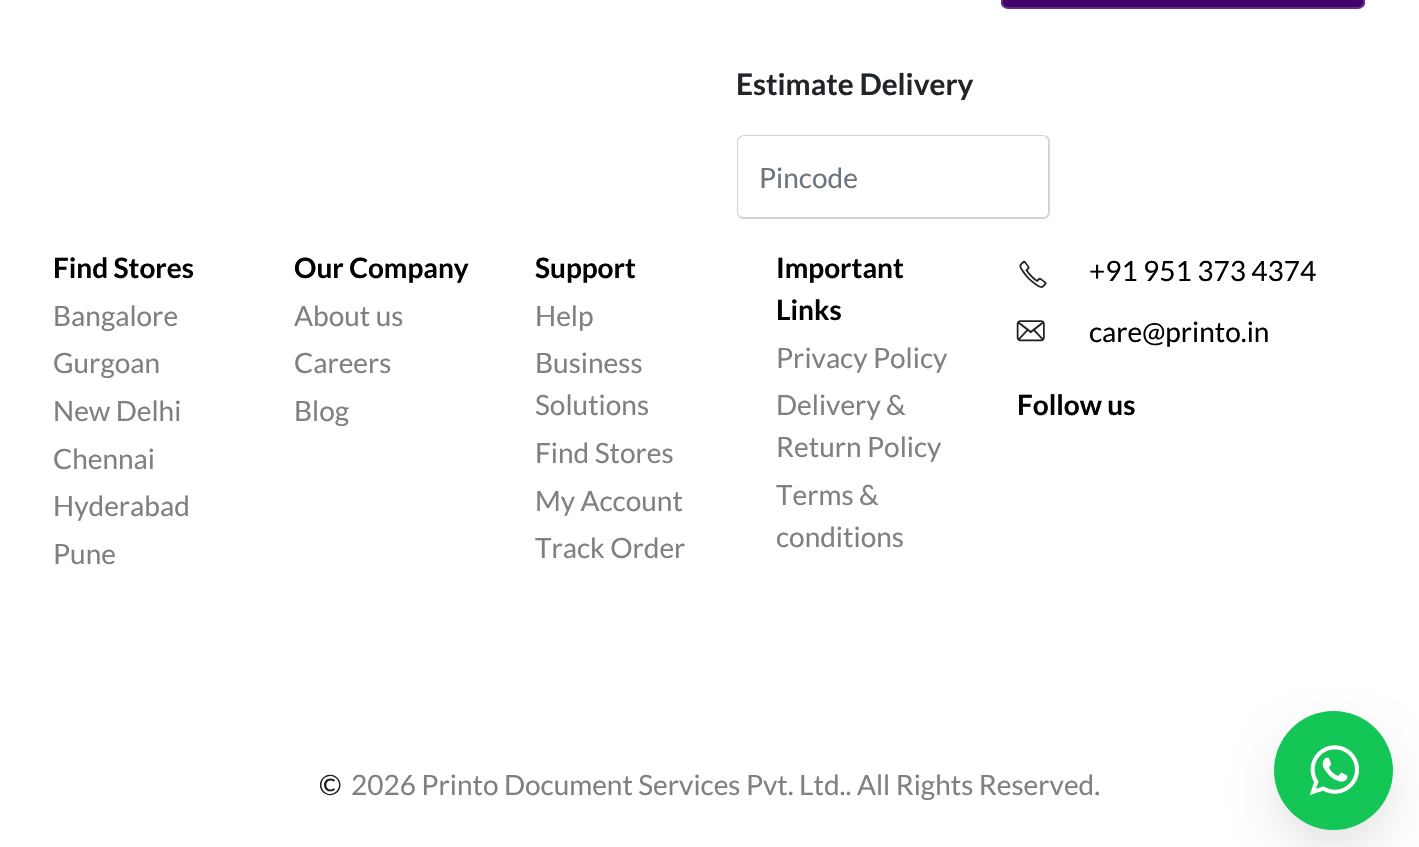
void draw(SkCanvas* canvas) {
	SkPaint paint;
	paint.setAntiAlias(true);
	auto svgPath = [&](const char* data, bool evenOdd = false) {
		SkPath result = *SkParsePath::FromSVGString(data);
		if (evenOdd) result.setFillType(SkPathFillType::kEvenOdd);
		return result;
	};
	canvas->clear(0xffffffff);
	canvas->save();
	canvas->clipPath(svgPath("M1008-58H1358C1362-58 1365-55 1365-51V2C1365 6 1362 9 1358 9H1008C1004 9 1001 6 1001 2V-51C1001-55 1004-58 1008-58Z"), true);
	{
		const SkColor colors[] = {0xff700895, 0xff3f0066};
		const float stops[] = {0, 1};
		const SkPoint ends[] = {{1183, -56}, {1183, 7}};
		paint.setShader(SkGradientShader::MakeLinear(ends, colors, stops, 2, SkTileMode::kClamp));
		paint.setAlpha(255);
	}
	canvas->drawRect(SkRect::MakeXYWH(1001, 0, 364, 7), paint);
	canvas->restore();
	paint.setStroke(true);
	paint.setStrokeWidth(2);
	paint.setShader(nullptr);
	paint.setColor(0xff662d91);
	canvas->drawRoundRect(SkRect::MakeXYWH(1002, -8, 362, 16), 6, 6, paint);
	SkFont f1(fontMgr->matchFamilyStyle("Lato", SkFontStyle::Bold()), 29.75);
	f1.setSubpixel(true);
	paint.setStroke(false);
	paint.setColor(0xff212529);
	canvas->drawString("Estimate Delivery", 736, 95, f1, paint);
	paint.setColor(0xffced4da);
	canvas->drawPath(svgPath("M1006 135H1043C1047 135 1050 138 1050 142V212C1050 216 1047 219 1043 219H1006ZM1006 136H1043C1046 136 1048 139 1048 142V212C1048 215 1046 217 1043 217H1006Z", true), paint);
	canvas->drawPath(svgPath("M744 135H1008V219H744C740 219 737 216 737 212V142C737 138 740 135 744 135ZM744 136H1008V217H744C741 217 738 215 738 212V142C738 139 741 136 744 136Z", true), paint);
	SkFont f2(fontMgr->matchFamilyStyle("Lato", SkFontStyle::Normal()), 28);
	f2.setSubpixel(true);
	paint.setColor(0xff6c757d);
	canvas->drawString("Pincode", 759, 188, f2, paint);
	SkFont f3(fontMgr->matchFamilyStyle("Lato", SkFontStyle::Bold()), 28);
	f3.setSubpixel(true);
	paint.setColor(0xff000000);
	canvas->drawString("Find Stores", 53, 278, f3, paint);
	paint.setColor(0xff808080);
	canvas->drawString("Bangalore", 53, 326, f2, paint);
	canvas->drawString("Gurgoan", 53, 373, f2, paint);
	canvas->drawString("New Delhi", 53, 421, f2, paint);
	canvas->drawString("Chennai", 53, 469, f2, paint);
	canvas->drawString("Hyderabad", 53, 516, f2, paint);
	canvas->drawString("Pune", 53, 564, f2, paint);
	paint.setColor(0xff000000);
	canvas->drawString("Our Company", 294, 278, f3, paint);
	paint.setColor(0xff808080);
	canvas->drawString("About us", 294, 326, f2, paint);
	canvas->drawString("Careers", 294, 373, f2, paint);
	canvas->drawString("Blog", 294, 421, f2, paint);
	paint.setColor(0xff000000);
	canvas->drawString("Support", 535, 278, f3, paint);
	paint.setColor(0xff808080);
	canvas->drawString("Help", 535, 326, f2, paint);
	canvas->drawString("Business", 535, 373, f2, paint);
	canvas->drawString("Solutions", 535, 415, f2, paint);
	canvas->drawString("Find Stores", 535, 463, f2, paint);
	canvas->drawString("My Account", 535, 511, f2, paint);
	canvas->drawString("Track Order", 535, 558, f2, paint);
	paint.setColor(0xff000000);
	canvas->drawString("Important", 776, 278, f3, paint);
	canvas->drawString("Links", 776, 320, f3, paint);
	paint.setColor(0xff808080);
	canvas->drawString("Privacy Policy", 776, 368, f2, paint);
	canvas->drawString("Delivery &", 776, 415, f2, paint);
	canvas->drawString("Return Policy", 776, 457, f2, paint);
	canvas->drawString("Terms &", 776, 505, f2, paint);
	canvas->drawString("conditions", 776, 547, f2, paint);
	canvas->drawImageRect(SkImages::DeferredFromEncodedData(SkData::MakeFromFileName("img1.png")), SkRect::MakeXYWH(1019, 260, 28, 28), SkSamplingOptions());
	paint.setColor(0xff000000);
	canvas->drawString("+91 951 373 4374", 1089, 281, f2, paint);
	canvas->drawImageRect(SkImages::DeferredFromEncodedData(SkData::MakeFromFileName("img2.png")), SkRect::MakeXYWH(1016, 320, 29, 22), SkSamplingOptions());
	canvas->drawString("care@printo.in", 1089, 342, f2, paint);
	canvas->drawString("Follow us", 1017, 415, f3, paint);
	paint.setColor(0xff212121);
	canvas->drawString("©", 319, 795, f2, paint);
	paint.setColor(0xff808080);
	canvas->drawString("2026 Printo Document Services Pvt. Ltd.. All Rights Reserved.", 351, 795, f2, paint);
	paint.setColor(0x1a000000);
	paint.setMaskFilter(SkMaskFilter::MakeBlur(kNormal_SkBlurStyle, 21));
	canvas->drawRoundRect(SkRect::MakeXYWH(1274, 732, 119, 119), 59.5, 59.5, paint);
	paint.setMaskFilter(nullptr);
	paint.setColor(0xff13c656);
	canvas->drawCircle(1333.5, 770.5, 59.5, paint);
	canvas->drawImageRect(SkImages::DeferredFromEncodedData(SkData::MakeFromFileName("img3.png")), SkRect::MakeXYWH(1309, 745, 51, 50), SkSamplingOptions());
}
